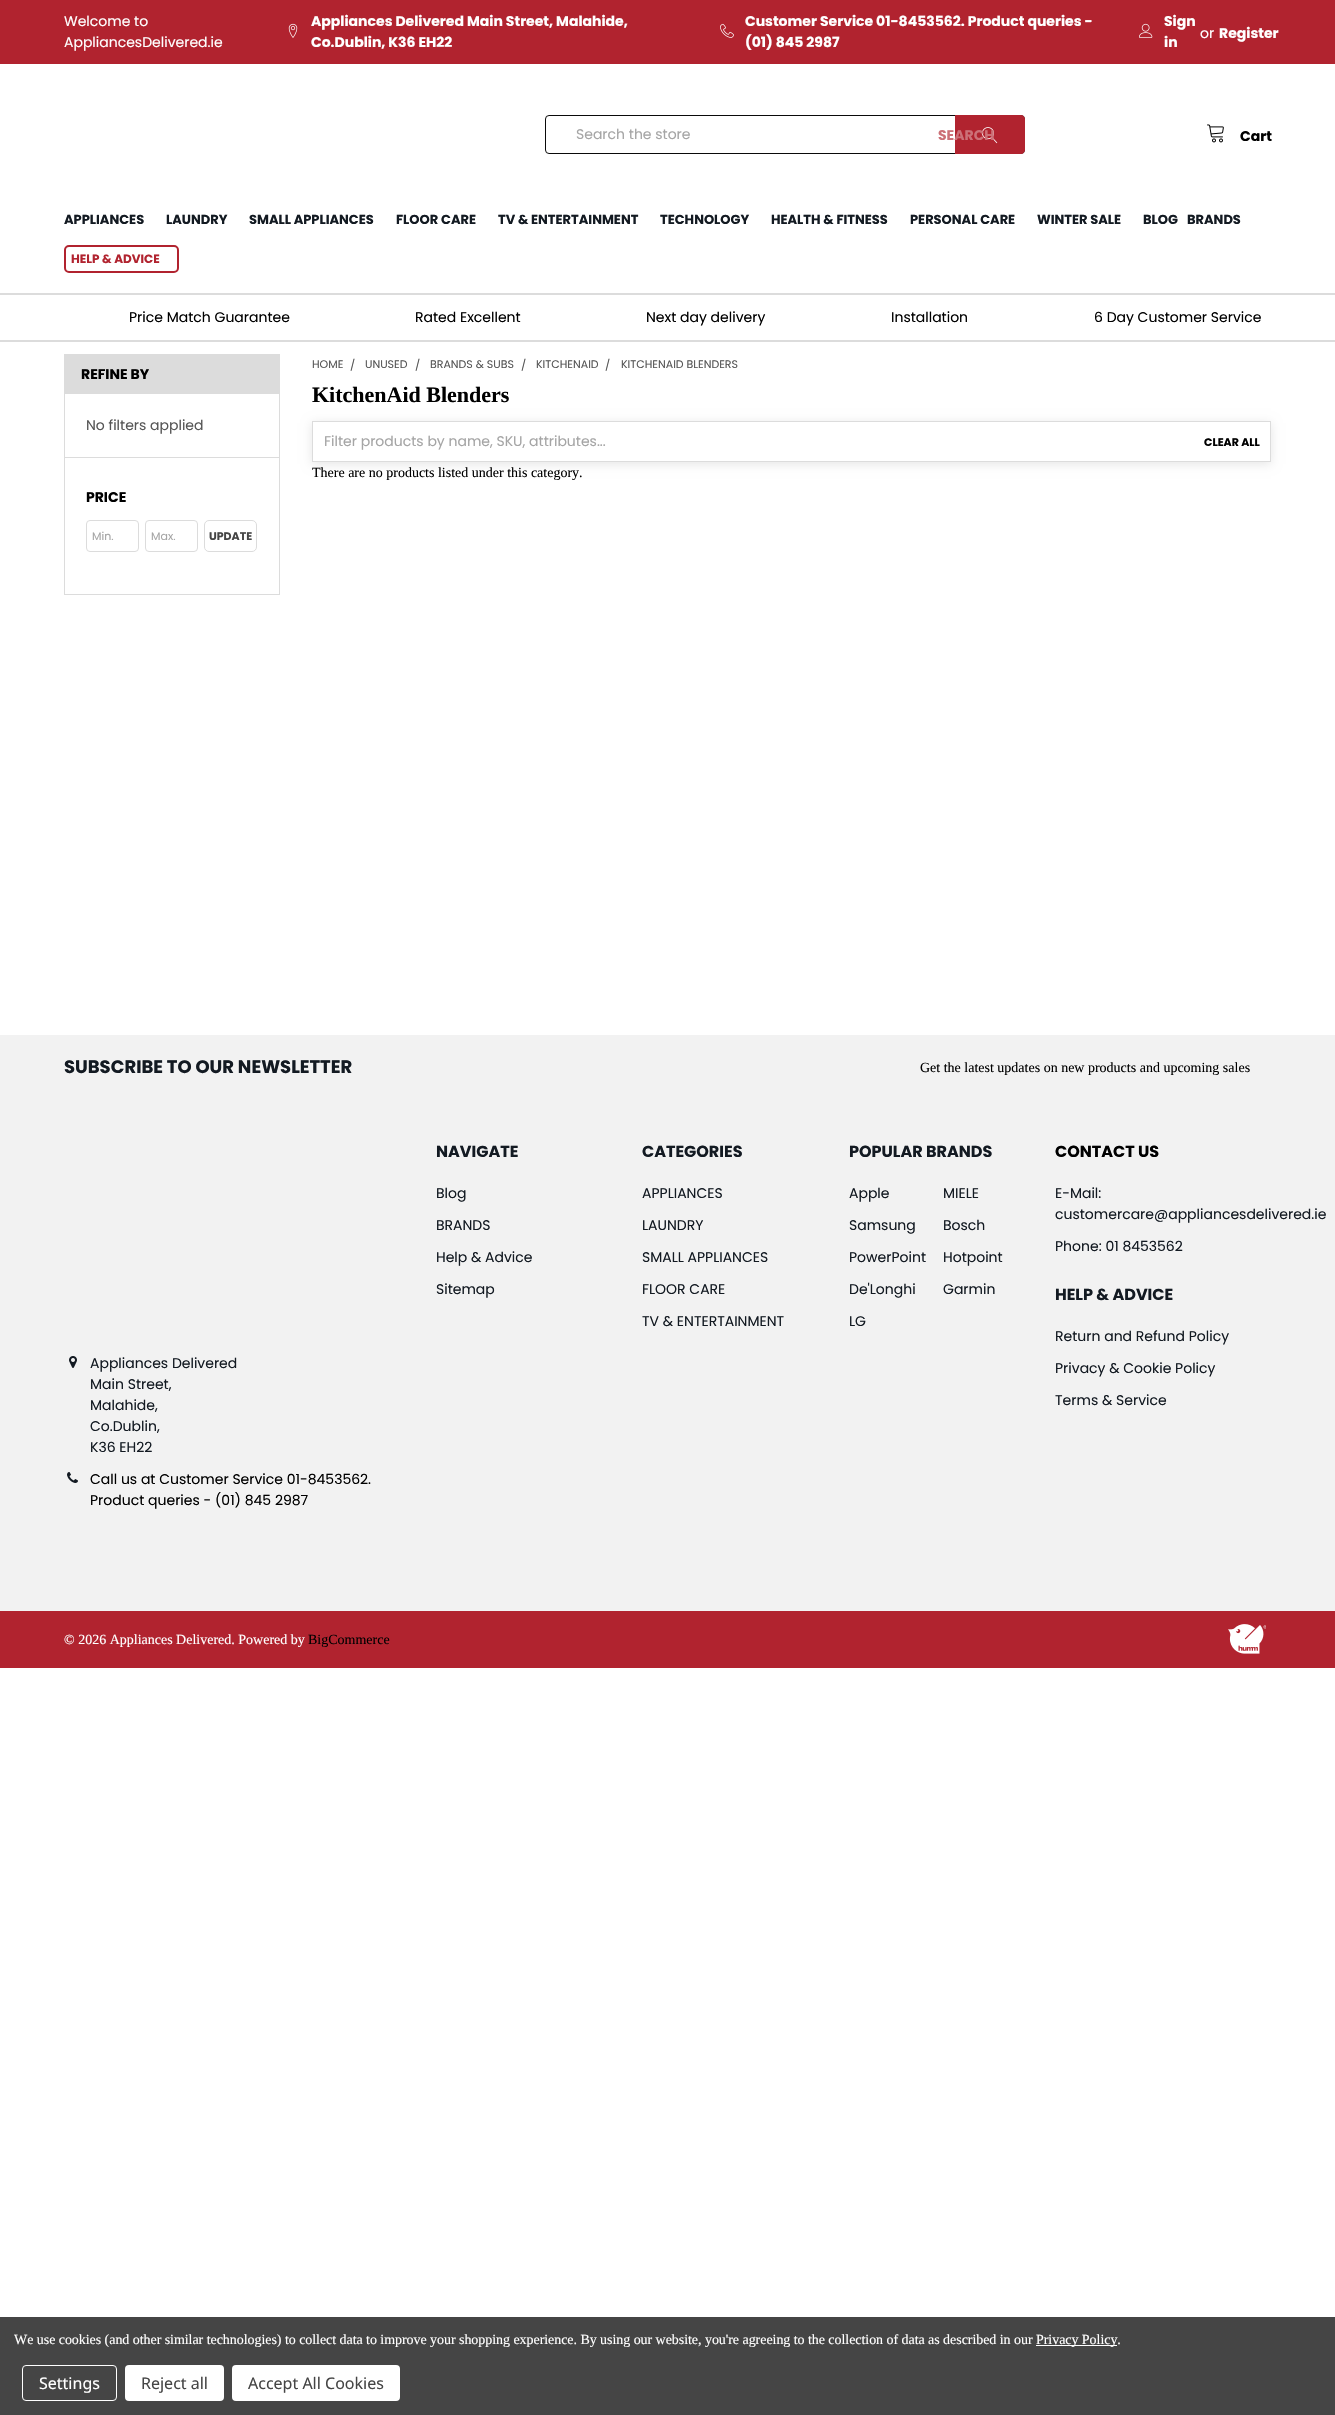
void draw(SkCanvas* canvas) {
	SkPaint paint;
	paint.setAntiAlias(true);
	auto spacedText = [&](const char* s, float x, float y, const SkFont& font, const SkPaint& ink, float letter, float word) {
		std::vector<SkGlyphID> glyphs(font.countText(s, strlen(s), SkTextEncoding::kUTF8));
		std::vector<float> xs(glyphs.size());
		font.textToGlyphs(s, strlen(s), SkTextEncoding::kUTF8, glyphs);
		font.getXPos(glyphs, xs, x);
		float extra = 0;
		for (size_t i = 0; i < glyphs.size(); i++) {
			xs[i] += extra;
			extra += letter + word * (glyphs[i] == font.unicharToGlyph(' '));
		}
		canvas->drawTextBlob(SkTextBlob::MakeFromPosHGlyphs(glyphs, xs, y, font), 0, 0, ink);
	};
	auto svgPath = [&](const char* data, bool evenOdd = false) {
		SkPath result = *SkParsePath::FromSVGString(data);
		if (evenOdd) result.setFillType(SkPathFillType::kEvenOdd);
		return result;
	};
	canvas->clear(0xffffffff);
	paint.setColor(0xffb1232f);
	canvas->drawRect(SkRect::MakeXYWH(0, 0, 1335, 64), paint);
	SkFont f1(fontMgr->matchFamilyStyle("Poppins", SkFontStyle::Normal()), 14);
	f1.setSubpixel(true);
	paint.setColor(0xffffffff);
	canvas->drawString("Welcome to", 64, 26, f1, paint);
	canvas->drawString("AppliancesDelivered.ie", 64, 47, f1, paint);
	canvas->drawImageRect(SkImages::DeferredFromEncodedData(SkData::MakeFromFileName("img1.png")), SkRect::MakeXYWH(288, 23, 10, 15), SkSamplingOptions());
	SkFont f2(fontMgr->matchFamilyStyle("Poppins", SkFontStyle::Bold()), 14);
	f2.setSubpixel(true);
	canvas->drawString("Appliances Delivered Main Street, Malahide,", 311, 26, f2, paint);
	canvas->drawString("Co.Dublin, K36 EH22", 311, 47, f2, paint);
	canvas->drawImageRect(SkImages::DeferredFromEncodedData(SkData::MakeFromFileName("img2.png")), SkRect::MakeXYWH(720, 23, 14, 15), SkSamplingOptions());
	canvas->drawString("Customer Service 01-8453562. Product queries -", 745, 26, f2, paint);
	canvas->drawString("(01) 845 2987", 745, 47, f2, paint);
	canvas->drawImageRect(SkImages::DeferredFromEncodedData(SkData::MakeFromFileName("img3.png")), SkRect::MakeXYWH(1139, 23, 14, 15), SkSamplingOptions());
	canvas->drawString("Sign", 1164, 26, f2, paint);
	canvas->drawString("in", 1164, 47, f2, paint);
	canvas->drawString("or", 1200, 38, f1, paint);
	canvas->drawString("Register", 1219, 38, f2, paint);
	paint.setStroke(true);
	paint.setStrokeWidth(1);
	paint.setColor(0xff0a0a0a);
	canvas->drawRoundRect(SkRect::MakeXYWH(545.5, 115.5, 479, 38), 3.5, 3.5, paint);
	paint.setStroke(false);
	paint.setColor(0xffb1232f);
	canvas->drawPath(svgPath("M955 115H1021C1023 115 1025 117 1025 119V150C1025 152 1023 154 1021 154H955Z"), paint);
	canvas->drawImageRect(SkImages::DeferredFromEncodedData(SkData::MakeFromFileName("img4.png")), SkRect::MakeXYWH(982, 127, 16, 17), SkSamplingOptions());
	paint.setColor(0xffa5a5a5);
	canvas->drawString("Search the store", 576, 139, f1, paint);
	paint.setColor(0xffcc7178);
	canvas->drawString("SEARCH", 938, 140, f2, paint);
	canvas->drawImageRect(SkImages::DeferredFromEncodedData(SkData::MakeFromFileName("img5.png")), SkRect::MakeXYWH(1207, 124, 17, 19), SkSamplingOptions());
	paint.setColor(0xff000000);
	canvas->drawString("Cart", 1240, 141, f2, paint);
	SkFont f3(fontMgr->matchFamilyStyle("Poppins", SkFontStyle::Bold()), 13);
	f3.setSubpixel(true);
	paint.setColor(0xff131a22);
	canvas->drawString("APPLIANCES", 64, 224, f3, paint);
	canvas->drawString("LAUNDRY", 166, 224, f3, paint);
	canvas->drawString("SMALL APPLIANCES", 249, 224, f3, paint);
	canvas->drawString("FLOOR CARE", 396, 224, f3, paint);
	canvas->drawString("TV & ENTERTAINMENT", 498, 224, f3, paint);
	canvas->drawString("TECHNOLOGY", 660, 224, f3, paint);
	canvas->drawString("HEALTH & FITNESS", 771, 224, f3, paint);
	canvas->drawString("PERSONAL CARE", 910, 224, f3, paint);
	canvas->drawString("WINTER SALE", 1037, 224, f3, paint);
	canvas->drawString("BLOG", 1143, 224, f3, paint);
	canvas->drawString("BRANDS", 1187, 224, f3, paint);
	paint.setStroke(true);
	paint.setStrokeWidth(2);
	paint.setColor(0xffb1232f);
	canvas->drawRoundRect(SkRect::MakeXYWH(65, 246, 113, 26), 4, 4, paint);
	SkFont f4(fontMgr->matchFamilyStyle("Poppins", SkFontStyle::Bold()), 12);
	f4.setSubpixel(true);
	paint.setStroke(false);
	canvas->drawString("HELP & ADVICE", 71, 263, f4, paint);
	paint.setColor(0xffdcdcdc);
	canvas->drawRect(SkRect::MakeXYWH(0, 293, 1335, 2), paint);
	canvas->drawRect(SkRect::MakeXYWH(0, 340, 1335, 2), paint);
	paint.setColor(0xff000000);
	canvas->drawString("Price Match Guarantee", 129, 322, f1, paint);
	canvas->drawString("Rated Excellent", 415, 322, f1, paint);
	canvas->drawString("Next day delivery", 646, 322, f1, paint);
	canvas->drawString("Installation", 891, 322, f1, paint);
	canvas->drawString("6 Day Customer Service", 1094, 322, f1, paint);
	paint.setStroke(true);
	paint.setStrokeWidth(1);
	paint.setColor(0xffdcdcdc);
	canvas->drawRect(SkRect::MakeXYWH(64.5, 354.5, 215, 240), paint);
	paint.setStroke(false);
	canvas->drawRect(SkRect::MakeXYWH(65, 457, 214, 1), paint);
	canvas->drawRect(SkRect::MakeXYWH(65, 355, 214, 39), paint);
	paint.setColor(0xff000000);
	canvas->drawString("REFINE BY", 81, 379, f2, paint);
	paint.setColor(0xff565656);
	canvas->drawString("No filters applied", 86, 430, f1, paint);
	paint.setColor(0xff000000);
	canvas->drawString("PRICE", 86, 502, f2, paint);
	paint.setStroke(true);
	paint.setColor(0xffdcdcdc);
	canvas->drawRoundRect(SkRect::MakeXYWH(86.5, 520.5, 52, 31), 3.5, 3.5, paint);
	SkFont f5(fontMgr->matchFamilyStyle("Poppins", SkFontStyle::Normal()), 11);
	f5.setSubpixel(true);
	paint.setStroke(false);
	paint.setColor(0xffa5a5a5);
	canvas->drawString("Min.", 92, 540, f5, paint);
	paint.setStroke(true);
	paint.setColor(0xffdcdcdc);
	canvas->drawRoundRect(SkRect::MakeXYWH(145.5, 520.5, 52, 31), 3.5, 3.5, paint);
	paint.setStroke(false);
	paint.setColor(0xffa5a5a5);
	canvas->drawString("Max.", 151, 540, f5, paint);
	paint.setStroke(true);
	paint.setColor(0xffdcdcdc);
	canvas->drawRoundRect(SkRect::MakeXYWH(204.5, 520.5, 52, 31), 4.5, 4.5, paint);
	SkFont f6(fontMgr->matchFamilyStyle("Poppins", SkFontStyle::Bold()), 11);
	f6.setSubpixel(true);
	paint.setStroke(false);
	paint.setColor(0xff454545);
	canvas->drawString("UPDATE", 209, 540, f6, paint);
	paint.setColor(0xff565656);
	canvas->drawString("HOME", 312, 368, f5, paint);
	canvas->drawString("/", 350, 369, f5, paint);
	canvas->drawString("UNUSED", 365, 368, f5, paint);
	canvas->drawString("/", 415, 369, f5, paint);
	canvas->drawString("BRANDS & SUBS", 430, 368, f5, paint);
	canvas->drawString("/", 521, 369, f5, paint);
	canvas->drawString("KITCHENAID", 536, 368, f5, paint);
	canvas->drawString("/", 605, 369, f5, paint);
	canvas->drawString("KITCHENAID BLENDERS", 621, 368, f5, paint);
	SkFont f7(fontMgr->matchFamilyStyle("Liberation Serif", SkFontStyle::Bold()), 22);
	f7.setSubpixel(true);
	paint.setColor(0xff000000);
	canvas->drawString("KitchenAid Blenders", 312, 402, f7, paint);
	canvas->save();
	canvas->clipPath(svgPath("M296 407H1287V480H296ZM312 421H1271V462H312Z", true), true);
	paint.setColor(0x1a000000);
	paint.setMaskFilter(SkMaskFilter::MakeBlur(kNormal_SkBlurStyle, 5));
	canvas->drawRect(SkRect::MakeXYWH(312, 423, 959, 41), paint);
	paint.setMaskFilter(nullptr);
	canvas->restore();
	paint.setStroke(true);
	paint.setColor(0xffdcdcdc);
	canvas->drawRect(SkRect::MakeXYWH(312.5, 421.5, 958, 40), paint);
	paint.setStroke(false);
	paint.setColor(0xffa5a5a5);
	canvas->drawString("Filter products by name, SKU, attributes...", 324, 446, f1, paint);
	paint.setColor(0xff000000);
	canvas->drawString("CLEAR ALL", 1204, 446, f6, paint);
	SkFont f8(fontMgr->matchFamilyStyle("Liberation Serif", SkFontStyle::Normal()), 14);
	f8.setSubpixel(true);
	canvas->drawString("There are no products listed under this category.", 312, 477, f8, paint);
	paint.setColor(0xfff2f2f2);
	canvas->drawRect(SkRect::MakeXYWH(0, 1035, 1335, 576), paint);
	SkFont f9(fontMgr->matchFamilyStyle("Poppins", SkFontStyle::Bold()), 18);
	f9.setSubpixel(true);
	paint.setColor(0xff131a22);
	canvas->drawString("SUBSCRIBE TO OUR NEWSLETTER", 64, 1073, f9, paint);
	paint.setColor(0xff000000);
	canvas->drawString("Get the latest updates on new products and upcoming sales", 920, 1072, f8, paint);
	SkFont f10(fontMgr->matchFamilyStyle("Poppins", SkFontStyle::Bold()), 16);
	f10.setSubpixel(true);
	paint.setColor(0xff131a22);
	canvas->drawString("NAVIGATE", 436, 1157, f10, paint);
	canvas->drawString("Blog", 436, 1198, f1, paint);
	canvas->drawString("BRANDS", 436, 1230, f1, paint);
	canvas->drawString("Help & Advice", 436, 1262, f1, paint);
	canvas->drawString("Sitemap", 436, 1294, f1, paint);
	canvas->drawString("CATEGORIES", 642, 1157, f10, paint);
	canvas->drawString("APPLIANCES", 642, 1198, f1, paint);
	canvas->drawString("LAUNDRY", 642, 1230, f1, paint);
	canvas->drawString("SMALL APPLIANCES", 642, 1262, f1, paint);
	canvas->drawString("FLOOR CARE", 642, 1294, f1, paint);
	canvas->drawString("TV & ENTERTAINMENT", 642, 1326, f1, paint);
	canvas->drawString("POPULAR BRANDS", 849, 1157, f10, paint);
	canvas->drawString("Apple", 849, 1198, f1, paint);
	canvas->drawString("MIELE", 943, 1198, f1, paint);
	canvas->drawString("Samsung", 849, 1230, f1, paint);
	canvas->drawString("Bosch", 943, 1230, f1, paint);
	canvas->drawString("PowerPoint", 849, 1262, f1, paint);
	canvas->drawString("Hotpoint", 943, 1262, f1, paint);
	canvas->drawString("De'Longhi", 849, 1294, f1, paint);
	canvas->drawString("Garmin", 943, 1294, f1, paint);
	canvas->drawString("LG", 849, 1326, f1, paint);
	paint.setColor(0xff000000);
	canvas->drawString("CONTACT US", 1055, 1157, f10, paint);
	paint.setColor(0xff131a22);
	canvas->drawString("E-Mail:", 1055, 1198, f1, paint);
	canvas->drawString("customercare@appliancesdelivered.ie", 1055, 1219, f1, paint);
	canvas->drawString("Phone: 01 8453562", 1055, 1251, f1, paint);
	canvas->drawString("HELP & ADVICE", 1055, 1300, f10, paint);
	canvas->drawString("Return and Refund Policy", 1055, 1341, f1, paint);
	canvas->drawString("Privacy & Cookie Policy", 1055, 1373, f1, paint);
	canvas->drawString("Terms & Service", 1055, 1405, f1, paint);
	canvas->drawImageRect(SkImages::DeferredFromEncodedData(SkData::MakeFromFileName("img6.png")), SkRect::MakeXYWH(69, 1356, 8, 12), SkSamplingOptions());
	canvas->drawString("Appliances Delivered", 90, 1368, f1, paint);
	canvas->drawString("Main Street,", 90, 1389, f1, paint);
	canvas->drawString("Malahide,", 90, 1410, f1, paint);
	canvas->drawString("Co.Dublin,", 90, 1431, f1, paint);
	canvas->drawString("K36 EH22", 90, 1452, f1, paint);
	canvas->drawImageRect(SkImages::DeferredFromEncodedData(SkData::MakeFromFileName("img7.png")), SkRect::MakeXYWH(67, 1472, 11, 11), SkSamplingOptions());
	paint.setColor(0xff000000);
	canvas->drawString("Call us at Customer Service 01-8453562.", 90, 1484, f1, paint);
	canvas->drawString("Product queries - (01) 845 2987", 90, 1505, f1, paint);
	paint.setColor(0xffb1232f);
	canvas->drawRect(SkRect::MakeXYWH(0, 1611, 1335, 57), paint);
	paint.setColor(0xffffffff);
	canvas->drawString("© 2026 Appliances Delivered. Powered by", 64, 1644, f8, paint);
	paint.setColor(0xff000000);
	canvas->drawString("BigCommerce", 308, 1644, f8, paint);
	canvas->drawImageRect(SkImages::DeferredFromEncodedData(SkData::MakeFromFileName("img8.png")), SkRect::MakeXYWH(1228, 1624, 38, 30), SkSamplingOptions());
	paint.setColor(0xff454545);
	canvas->drawRect(SkRect::MakeXYWH(0, 2317, 1335, 98), paint);
	paint.setColor(0xffffffff);
	spacedText("We use cookies (and other similar technologies) to collect data to improve your shopping experience. By using our website, you're agreeing to the collection of data as described in our", 14, 2344, f8, paint, -0.05, 0);
	canvas->drawRect(SkRect::MakeXYWH(1036, 2345, 81, 1), paint);
	spacedText("Privacy Policy.", 1036, 2344, f8, paint, -0.05, 0);
	paint.setStroke(true);
	canvas->drawRoundRect(SkRect::MakeXYWH(22.5, 2365.5, 94, 35), 3.5, 3.5, paint);
	SkFont f11(fontMgr->matchFamilyStyle("Noto Sans", SkFontStyle::Normal()), 16);
	f11.setSubpixel(true);
	paint.setStroke(false);
	canvas->drawString("Settings", 39, 2389, f11, paint);
	canvas->drawRoundRect(SkRect::MakeXYWH(125, 2365, 99, 36), 4, 4, paint);
	paint.setColor(0xff454545);
	canvas->drawString("Reject all", 141, 2389, f11, paint);
	paint.setColor(0xffffffff);
	canvas->drawRoundRect(SkRect::MakeXYWH(232, 2365, 168, 36), 4, 4, paint);
	paint.setColor(0xff454545);
	canvas->drawString("Accept All Cookies", 248, 2389, f11, paint);
}
